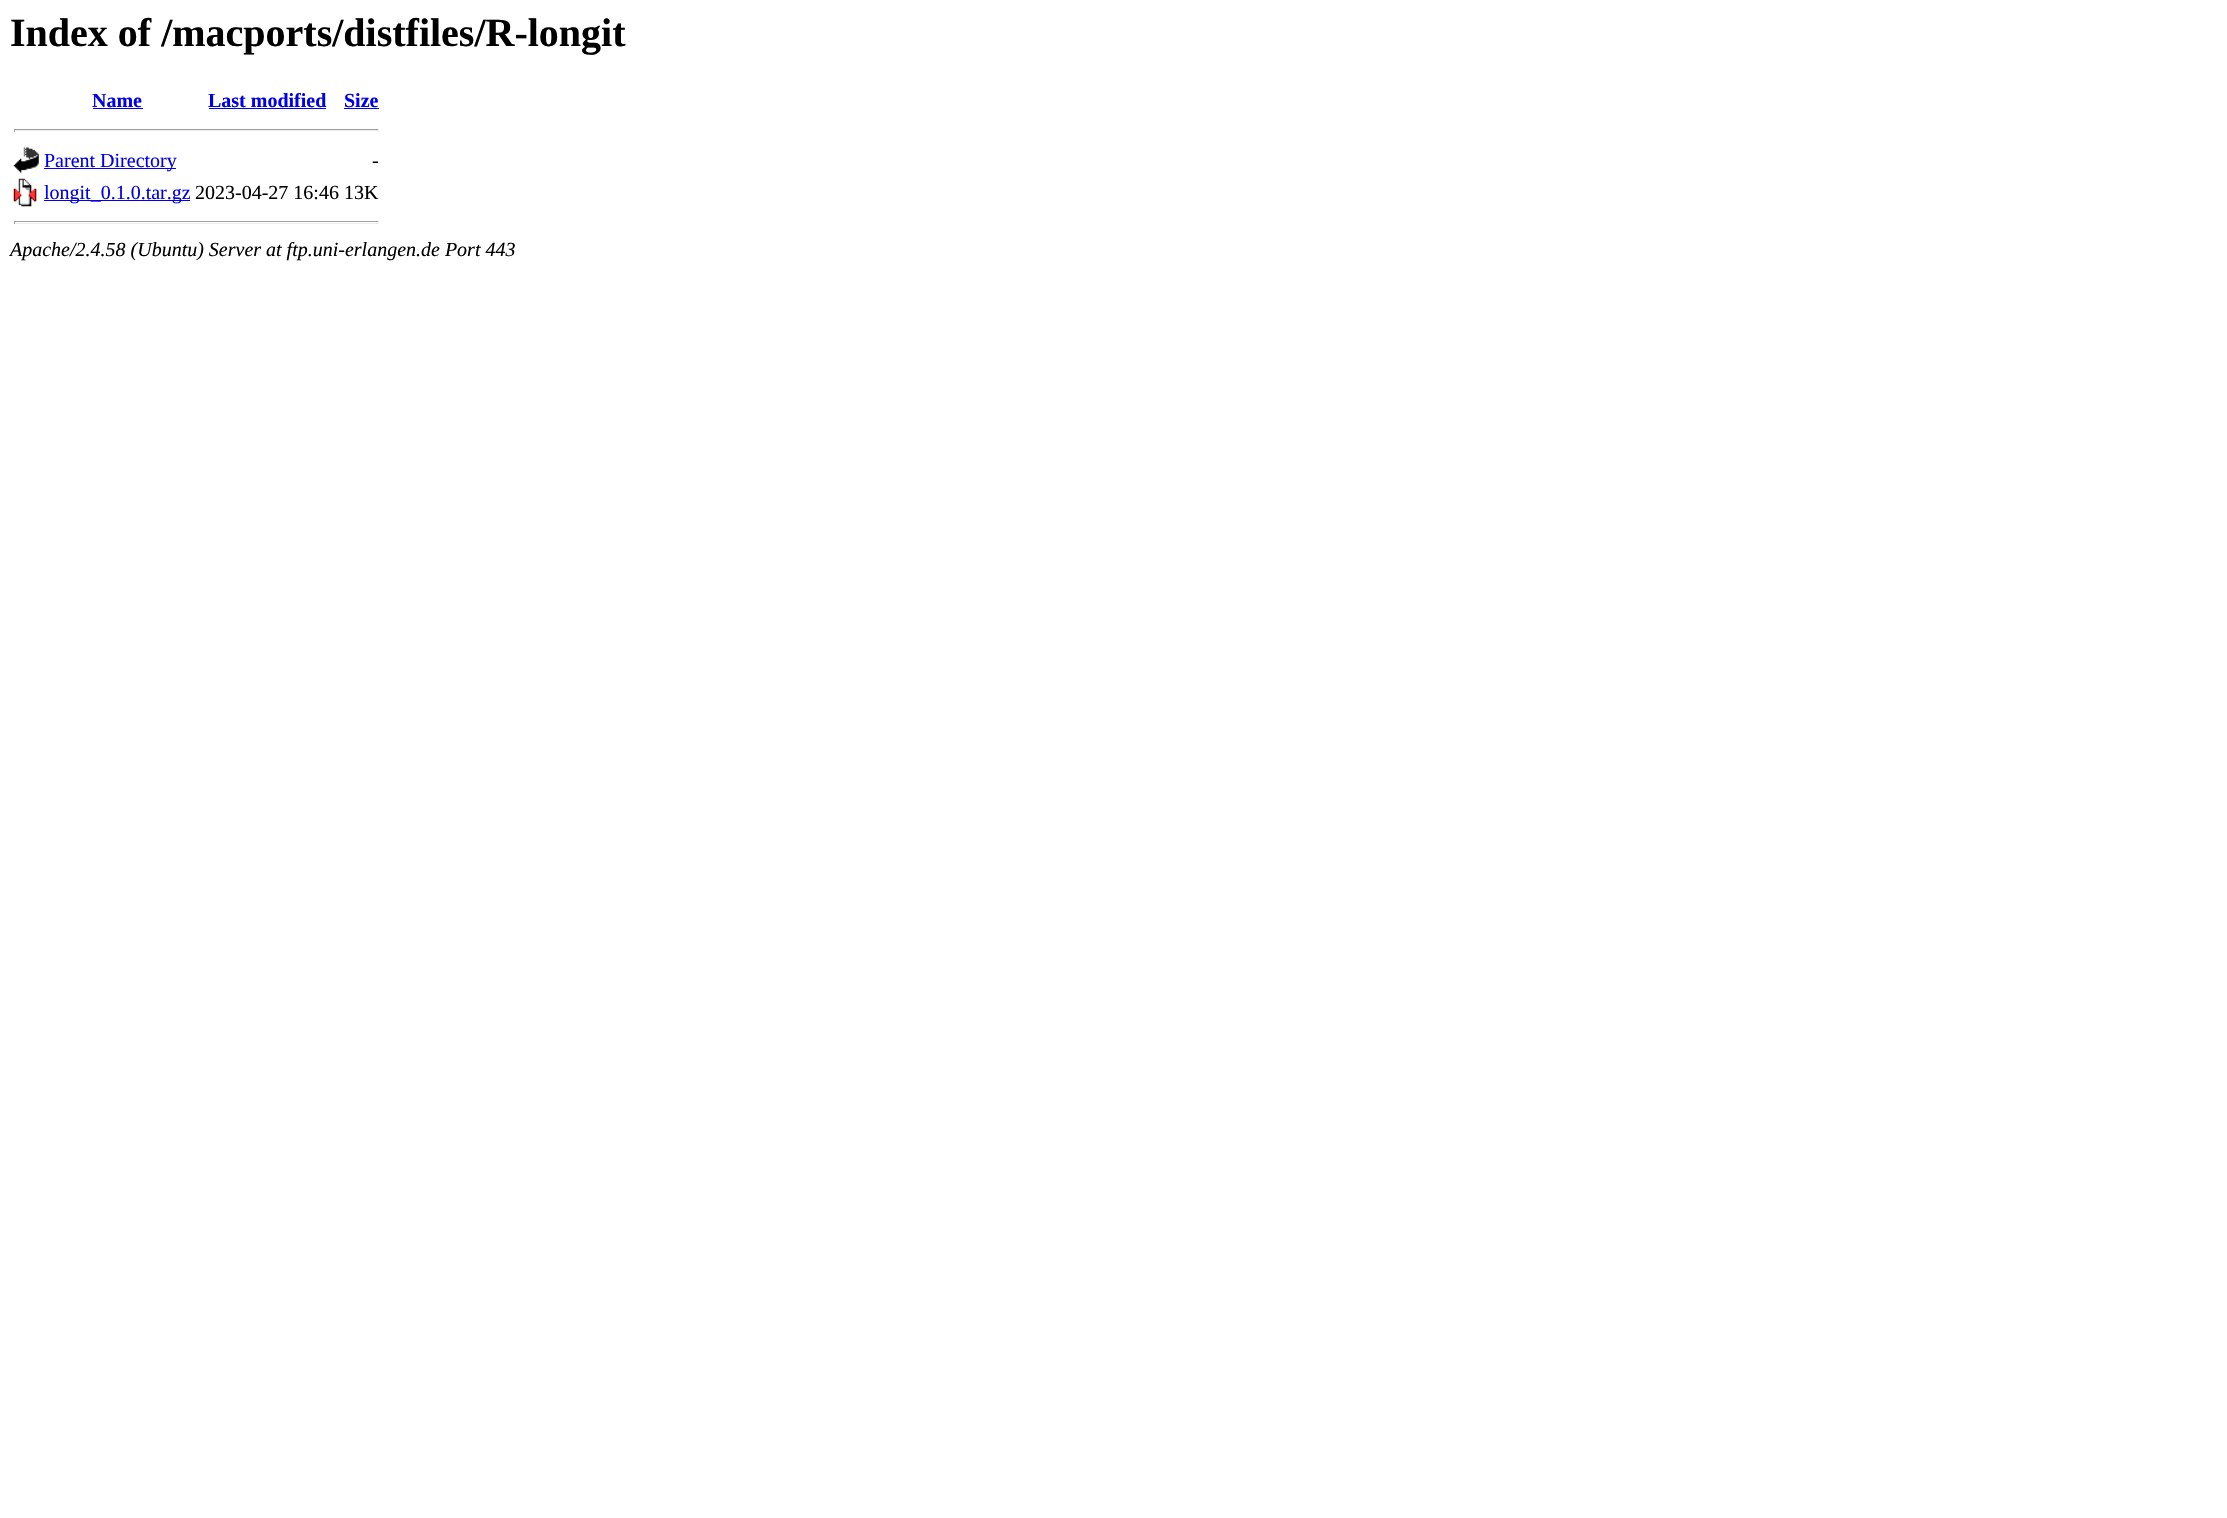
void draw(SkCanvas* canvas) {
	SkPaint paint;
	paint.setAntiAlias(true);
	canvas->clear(0xffffffff);
	SkFont f1(fontMgr->matchFamilyStyle("Liberation Serif", SkFontStyle::Bold()), 40);
	f1.setSubpixel(true);
	paint.setColor(0xff000000);
	canvas->drawString("Index of /macports/distfiles/R-longit", 10, 46, f1, paint);
	SkFont f2(fontMgr->matchFamilyStyle("Liberation Serif", SkFontStyle::Bold()), 20);
	f2.setSubpixel(true);
	paint.setColor(0xff0000ee);
	canvas->drawString("Name", 92, 107, f2, paint);
	canvas->drawRect(SkRect::MakeXYWH(93, 108, 50, 1), paint);
	canvas->drawString("Last modified", 208, 107, f2, paint);
	canvas->drawRect(SkRect::MakeXYWH(209, 108, 117, 1), paint);
	canvas->drawString("Size", 344, 107, f2, paint);
	canvas->drawRect(SkRect::MakeXYWH(344, 108, 35, 1), paint);
	paint.setColor(0xff9f9f9f);
	canvas->drawRect(SkRect::MakeXYWH(14, 129, 365, 1), paint);
	paint.setColor(0xffeeeeee);
	canvas->drawRect(SkRect::MakeXYWH(378, 129, 1, 3), paint);
	canvas->drawRect(SkRect::MakeXYWH(14, 130, 365, 1), paint);
	paint.setColor(0xff9f9f9f);
	canvas->drawRect(SkRect::MakeXYWH(14, 129, 1, 3), paint);
	canvas->drawImageRect(SkImages::DeferredFromEncodedData(SkData::MakeFromFileName("img1.png")), SkRect::MakeXYWH(13, 147, 26, 26), SkSamplingOptions());
	paint.setColor(0xff0000ee);
	canvas->drawRect(SkRect::MakeXYWH(44, 168, 132, 1), paint);
	SkFont f3(fontMgr->matchFamilyStyle("Liberation Serif", SkFontStyle::Normal()), 20);
	f3.setSubpixel(true);
	canvas->drawString("Parent Directory", 44, 167, f3, paint);
	paint.setColor(0xff000000);
	canvas->drawString("-", 372, 167, f3, paint);
	canvas->drawImageRect(SkImages::DeferredFromEncodedData(SkData::MakeFromFileName("img2.png")), SkRect::MakeXYWH(13, 178, 24, 29), SkSamplingOptions());
	paint.setColor(0xff0000ee);
	canvas->drawRect(SkRect::MakeXYWH(44, 200, 146, 1), paint);
	canvas->drawString("longit_0.1.0.tar.gz", 44, 199, f3, paint);
	paint.setColor(0xff000000);
	canvas->drawString("2023-04-27 16:46 13K", 195, 199, f3, paint);
	paint.setColor(0xff9f9f9f);
	canvas->drawRect(SkRect::MakeXYWH(14, 221, 365, 1), paint);
	paint.setColor(0xffeeeeee);
	canvas->drawRect(SkRect::MakeXYWH(378, 221, 1, 3), paint);
	canvas->drawRect(SkRect::MakeXYWH(14, 223, 365, 1), paint);
	paint.setColor(0xff9f9f9f);
	canvas->drawRect(SkRect::MakeXYWH(14, 221, 1, 3), paint);
	SkFont f4(fontMgr->matchFamilyStyle("Liberation Serif", SkFontStyle::Italic()), 20);
	f4.setSubpixel(true);
	paint.setColor(0xff000000);
	canvas->drawString("Apache/2.4.58 (Ubuntu) Server at ftp.uni-erlangen.de Port 443", 10, 256, f4, paint);
}
